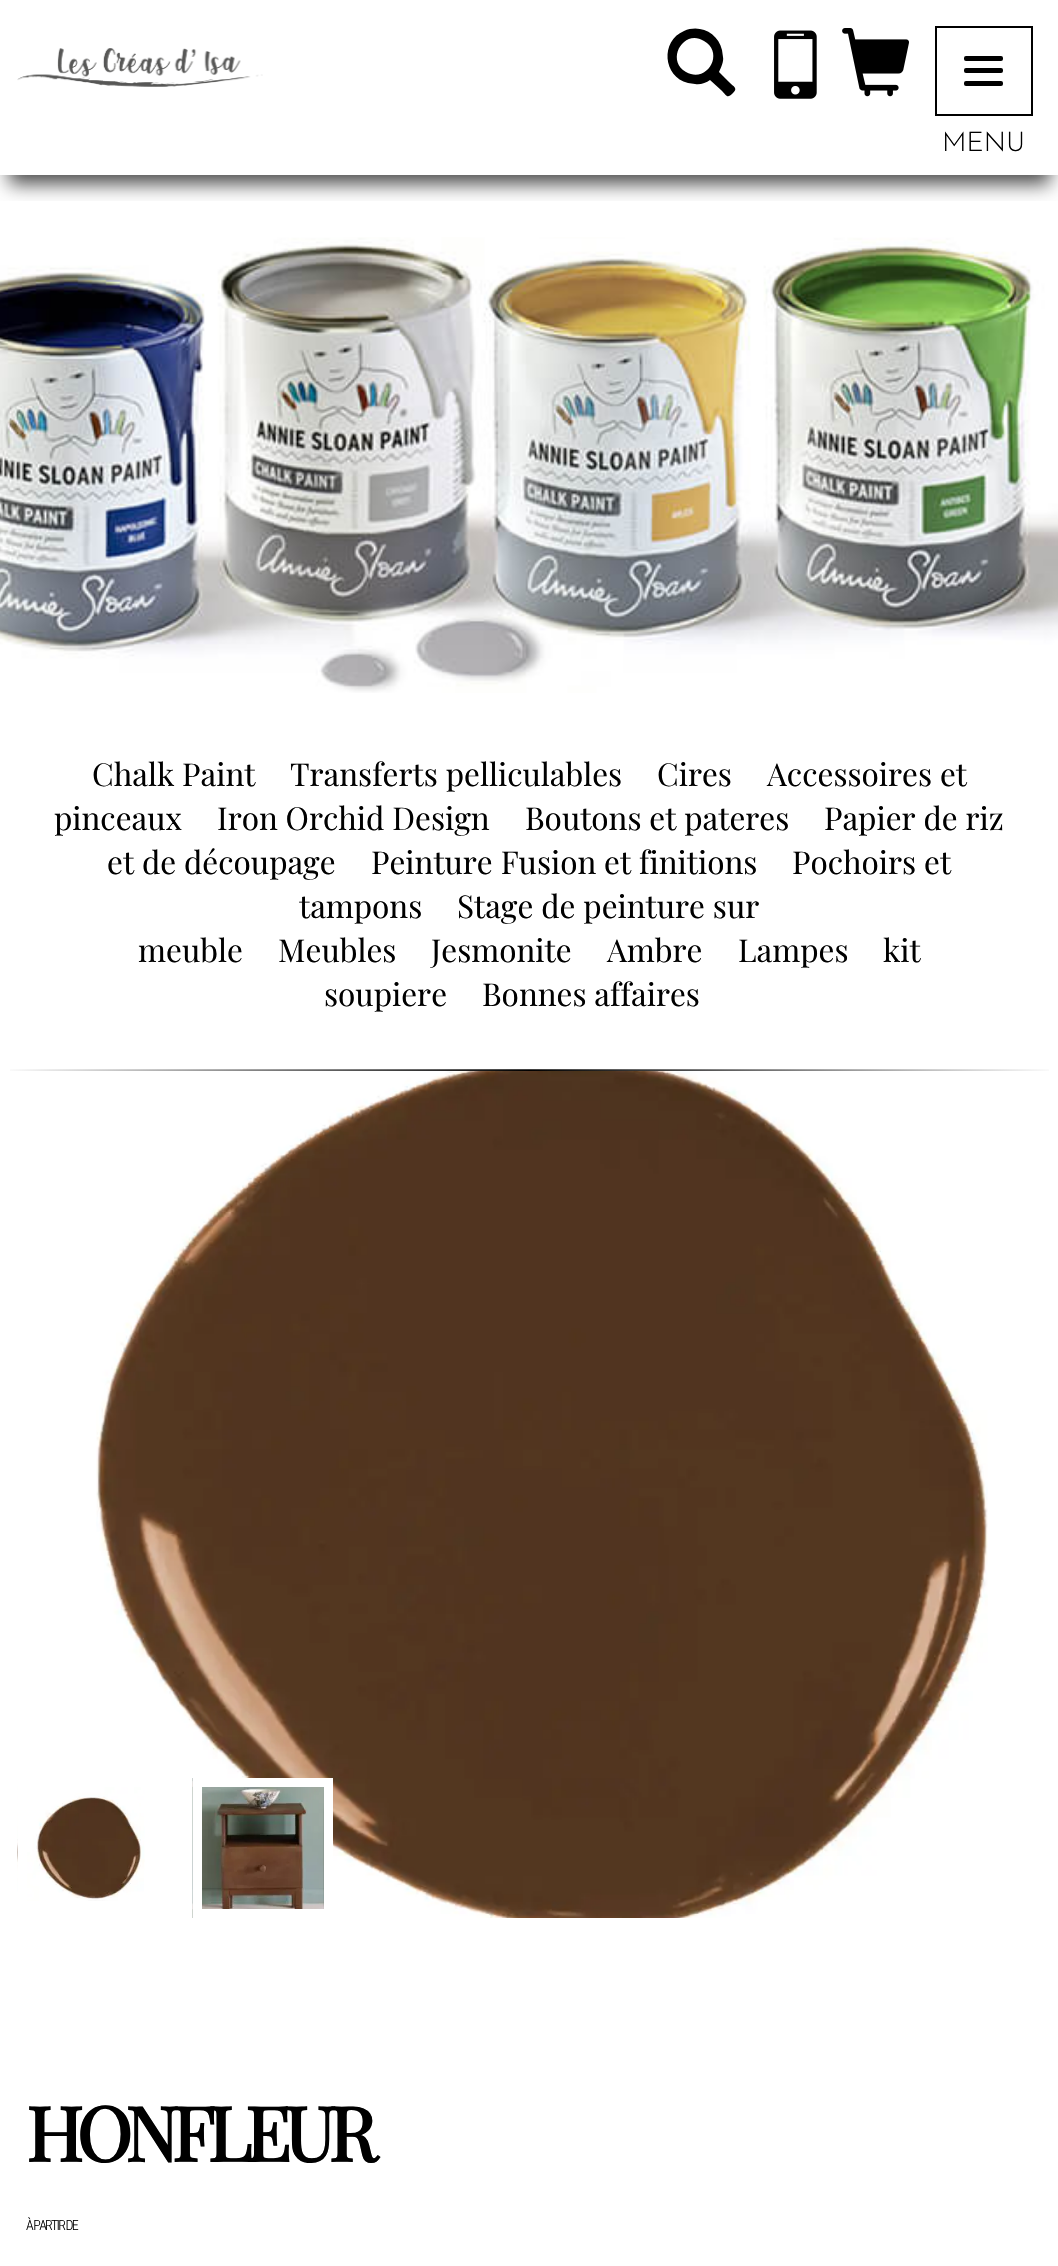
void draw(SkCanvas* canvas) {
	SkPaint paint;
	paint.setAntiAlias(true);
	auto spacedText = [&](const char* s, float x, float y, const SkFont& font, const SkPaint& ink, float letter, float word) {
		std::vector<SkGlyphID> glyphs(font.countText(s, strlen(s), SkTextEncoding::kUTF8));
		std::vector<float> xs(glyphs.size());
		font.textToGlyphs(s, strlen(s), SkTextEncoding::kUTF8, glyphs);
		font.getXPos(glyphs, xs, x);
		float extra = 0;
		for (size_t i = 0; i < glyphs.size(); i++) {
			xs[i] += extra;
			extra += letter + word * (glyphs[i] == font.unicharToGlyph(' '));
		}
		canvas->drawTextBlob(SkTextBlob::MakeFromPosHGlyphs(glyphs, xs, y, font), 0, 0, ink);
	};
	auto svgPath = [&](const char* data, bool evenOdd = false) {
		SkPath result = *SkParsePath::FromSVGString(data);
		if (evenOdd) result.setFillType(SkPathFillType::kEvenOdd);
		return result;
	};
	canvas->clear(0xffffffff);
	canvas->save();
	canvas->clipRect(SkRect::MakeXYWH(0, 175, 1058, 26));
	paint.setColor(0xb3000000);
	paint.setMaskFilter(SkMaskFilter::MakeBlur(kNormal_SkBlurStyle, 9));
	canvas->drawRect(SkRect::MakeXYWH(9, 26, 1041, 158), paint);
	paint.setMaskFilter(nullptr);
	canvas->restore();
	canvas->drawImageRect(SkImages::DeferredFromEncodedData(SkData::MakeFromFileName("img1.png")), SkRect::MakeXYWH(17, 48, 246, 39), SkSamplingOptions());
	paint.setColor(0xff000000);
	canvas->drawPath(svgPath("M684 31C700 24 718 33 722 50L723 57C724 61 721 68 719 72L729 82C734 87 738 88 733 93C727 99 727 96 721 90L710 80C706 83 700 85 695 84L688 83C663 77 660 41 684 31ZM704 41C684 28 665 60 686 72C707 84 725 53 704 41Z"), paint);
	canvas->drawImageRect(SkImages::DeferredFromEncodedData(SkData::MakeFromFileName("img2.png")), SkRect::MakeXYWH(774, 30, 43, 69), SkSamplingOptions());
	canvas->drawImageRect(SkImages::DeferredFromEncodedData(SkData::MakeFromFileName("img3.png")), SkRect::MakeXYWH(842, 28, 67, 69), SkSamplingOptions());
	paint.setStroke(true);
	paint.setStrokeWidth(2);
	canvas->drawRect(SkRect::MakeXYWH(936, 27, 96, 88), paint);
	paint.setStroke(false);
	canvas->drawRoundRect(SkRect::MakeXYWH(964, 56, 39, 5), 2, 2, paint);
	canvas->drawRoundRect(SkRect::MakeXYWH(964, 68, 39, 5), 2, 2, paint);
	canvas->drawRoundRect(SkRect::MakeXYWH(964, 81, 39, 5), 2, 2, paint);
	SkFont f1(fontMgr->matchFamilyStyle("Josefin Sans", SkFontStyle(300, SkFontStyle::kNormal_Width, SkFontStyle::kUpright_Slant)), 27);
	f1.setSubpixel(true);
	canvas->drawString("MENU", 942, 151, f1, paint);
	canvas->drawImageRect(SkImages::DeferredFromEncodedData(SkData::MakeFromFileName("img4.png")), SkRect::MakeXYWH(0, 237, 1058, 456), SkSamplingOptions());
	canvas->drawImageRect(SkImages::DeferredFromEncodedData(SkData::MakeFromFileName("img5.png")), SkRect::MakeXYWH(10, 1069, 1039, 2), SkSamplingOptions());
	SkFont f2(fontMgr->matchFamilyStyle("Playfair Display", SkFontStyle::Normal()), 31.5);
	f2.setSubpixel(true);
	canvas->drawString("Chalk Paint", 92, 786, f2, paint);
	canvas->drawString("Transferts pelliculables", 290, 786, f2, paint);
	canvas->drawString("Cires", 657, 786, f2, paint);
	canvas->drawString("Accessoires et", 767, 786, f2, paint);
	canvas->drawString("pinceaux", 54, 830, f2, paint);
	canvas->drawString("Iron Orchid Design", 217, 830, f2, paint);
	canvas->drawString("Boutons et pateres", 525, 830, f2, paint);
	canvas->drawString("Papier de riz", 824, 830, f2, paint);
	canvas->drawString("et de découpage", 107, 874, f2, paint);
	canvas->drawString("Peinture Fusion et finitions", 371, 874, f2, paint);
	canvas->drawString("Pochoirs et", 792, 874, f2, paint);
	canvas->drawString("tampons", 299, 918, f2, paint);
	canvas->drawString("Stage de peinture sur", 457, 918, f2, paint);
	canvas->drawString("meuble", 138, 962, f2, paint);
	canvas->drawString("Meubles", 278, 962, f2, paint);
	canvas->drawString("Jesmonite", 431, 962, f2, paint);
	canvas->drawString("Ambre", 607, 962, f2, paint);
	canvas->drawString("Lampes", 738, 962, f2, paint);
	canvas->drawString("kit", 883, 962, f2, paint);
	canvas->drawString("soupiere", 324, 1006, f2, paint);
	canvas->drawString("Bonnes affaires", 482, 1006, f2, paint);
	canvas->drawImageRect(SkImages::DeferredFromEncodedData(SkData::MakeFromFileName("img6.png")), SkRect::MakeXYWH(96, 1071, 892, 847), SkSamplingOptions());
	canvas->drawImageRect(SkImages::DeferredFromEncodedData(SkData::MakeFromFileName("img7.png")), SkRect::MakeXYWH(17, 1778, 128, 123), SkSamplingOptions());
	paint.setStroke(true);
	paint.setStrokeWidth(9);
	paint.setColor(0xffffffff);
	canvas->drawRect(SkRect::MakeXYWH(22.5, 1782.5, 131, 131), paint);
	canvas->drawImageRect(SkImages::DeferredFromEncodedData(SkData::MakeFromFileName("img8.png")), SkRect::MakeXYWH(192, 1778, 132, 140), SkSamplingOptions());
	canvas->drawRect(SkRect::MakeXYWH(197.5, 1782.5, 131, 131), paint);
	SkFont f3(fontMgr->matchFamilyStyle("Playfair Display", SkFontStyle::Bold()), 75.5);
	f3.setSubpixel(true);
	paint.setStroke(false);
	paint.setColor(0xff000000);
	spacedText("HONFLEUR", 26, 2162, f3, paint, -7, 0);
	SkFont f4(fontMgr->matchFamilyStyle("Roboto Condensed", SkFontStyle(300, SkFontStyle::kNormal_Width, SkFontStyle::kUpright_Slant)), 14);
	f4.setSubpixel(true);
	spacedText("À PARTIR DE", 26, 2230, f4, paint, -1.75, 0);
}
